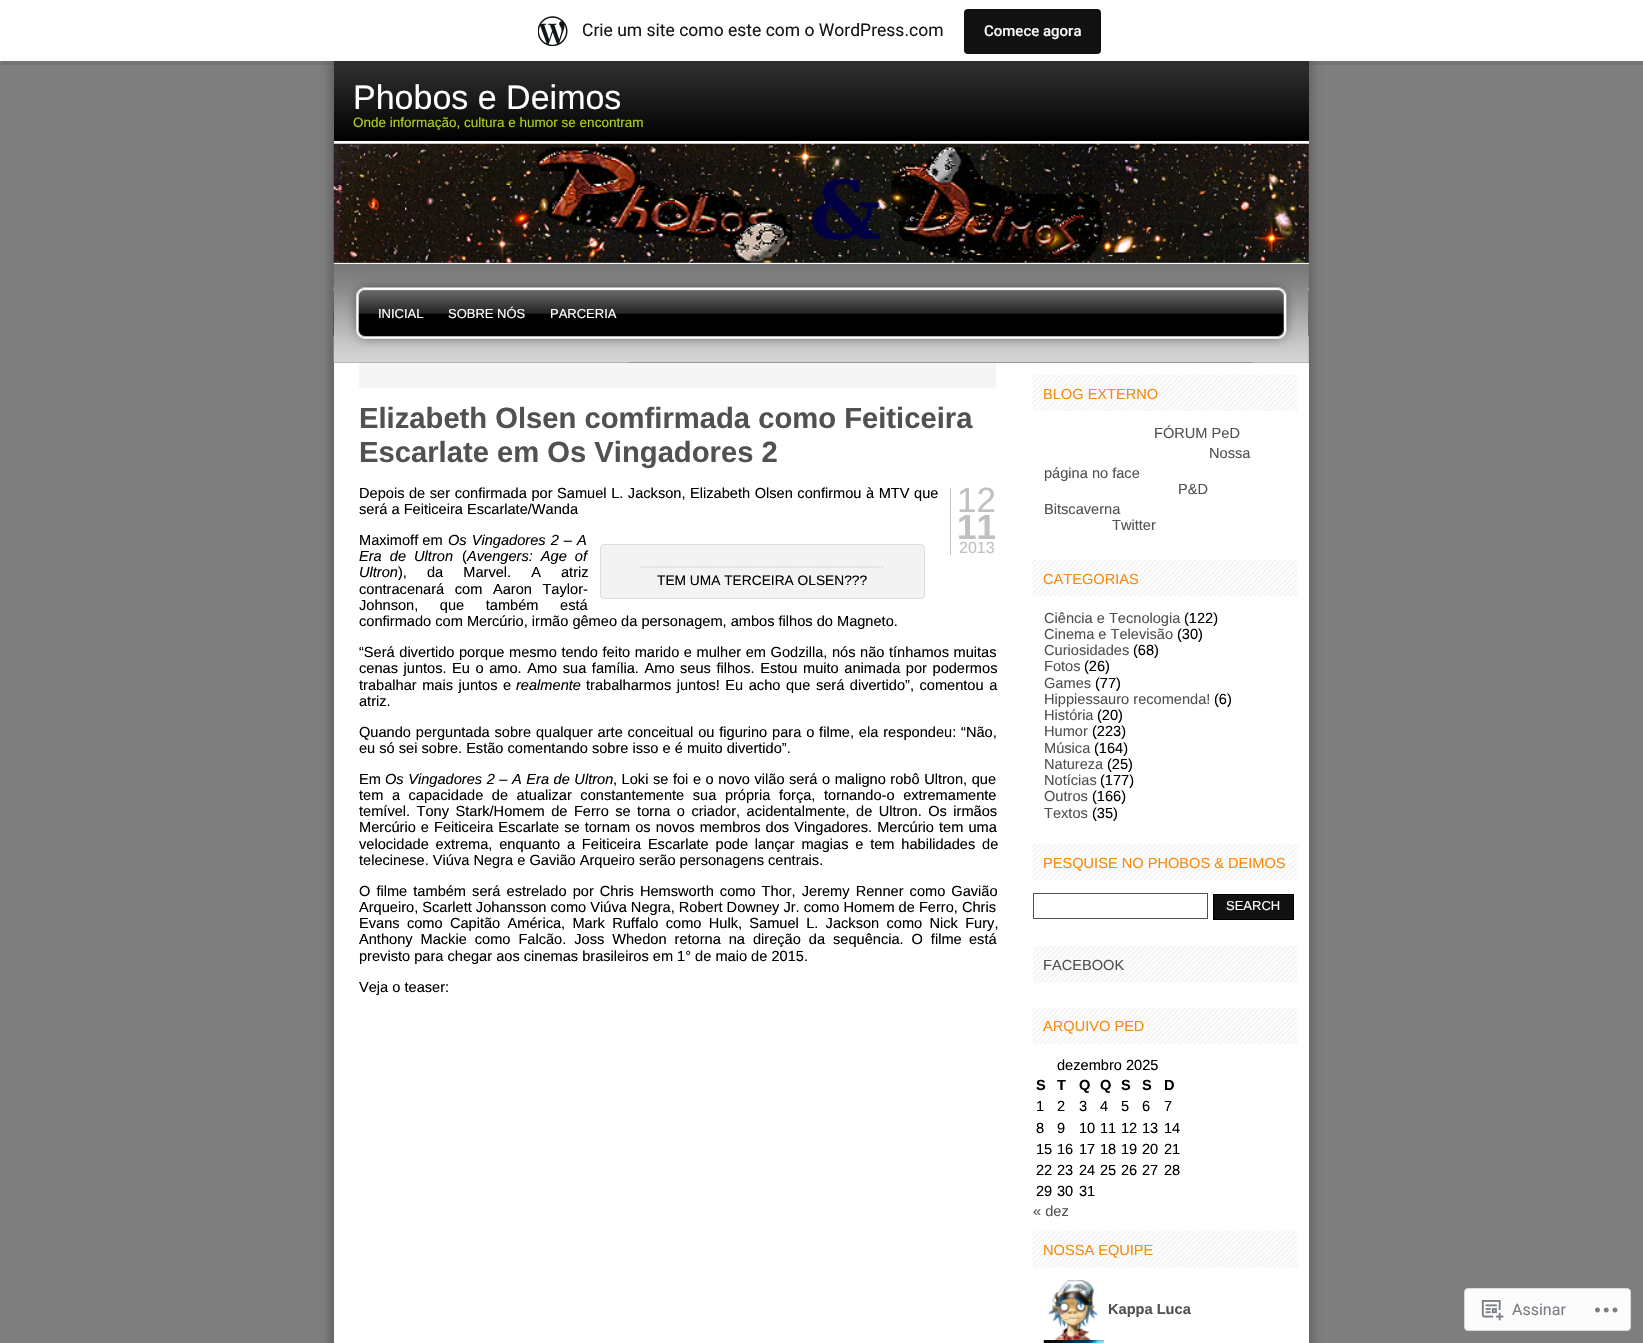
void draw(SkCanvas* canvas) {
	SkPaint paint;
	paint.setAntiAlias(true);
	auto spacedText = [&](const char* s, float x, float y, const SkFont& font, const SkPaint& ink, float letter, float word) {
		std::vector<SkGlyphID> glyphs(font.countText(s, strlen(s), SkTextEncoding::kUTF8));
		std::vector<float> xs(glyphs.size());
		font.textToGlyphs(s, strlen(s), SkTextEncoding::kUTF8, glyphs);
		font.getXPos(glyphs, xs, x);
		float extra = 0;
		for (size_t i = 0; i < glyphs.size(); i++) {
			xs[i] += extra;
			extra += letter + word * (glyphs[i] == font.unicharToGlyph(' '));
		}
		canvas->drawTextBlob(SkTextBlob::MakeFromPosHGlyphs(glyphs, xs, y, font), 0, 0, ink);
	};
	auto svgPath = [&](const char* data, bool evenOdd = false) {
		SkPath result = *SkParsePath::FromSVGString(data);
		if (evenOdd) result.setFillType(SkPathFillType::kEvenOdd);
		return result;
	};
	canvas->clear(0xff7f7f7f);
	paint.setColor(0xff5a5a5a);
	paint.setMaskFilter(SkMaskFilter::MakeBlur(kNormal_SkBlurStyle, 6));
	canvas->drawRect(SkRect::MakeXYWH(331, 59, 980, 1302), paint);
	paint.setMaskFilter(nullptr);
	{
		const SkColor colors[] = {0xff323232, 0xff000000};
		const float stops[] = {0, 1};
		const SkPoint ends[] = {{821, 61}, {821, 141}};
		paint.setShader(SkGradientShader::MakeLinear(ends, colors, stops, 2, SkTileMode::kClamp));
		paint.setAlpha(255);
	}
	canvas->drawRect(SkRect::MakeXYWH(334, 61, 975, 80), paint);
	paint.setShader(nullptr);
	paint.setColor(0x14000000);
	canvas->drawPath(svgPath("M1 61V65H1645V4H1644V61Z"), paint);
	paint.setColor(0xffffffff);
	canvas->drawRect(SkRect::MakeXYWH(0, 0, 1643, 61), paint);
	canvas->drawImageRect(SkImages::DeferredFromEncodedData(SkData::MakeFromFileName("img1.png")), SkRect::MakeXYWH(538, 16, 30, 30), SkSamplingOptions());
	SkFont f1(fontMgr->matchFamilyStyle("Roboto", SkFontStyle::Normal()), 17.5);
	f1.setSubpixel(true);
	paint.setColor(0xff171717);
	canvas->drawString("Crie um site como este com o WordPress.com", 582, 36, f1, paint);
	paint.setColor(0xff111111);
	canvas->drawRoundRect(SkRect::MakeXYWH(964, 9, 137, 45), 4, 4, paint);
	SkFont f2(fontMgr->matchFamilyStyle("Roboto", SkFontStyle(500, SkFontStyle::kNormal_Width, SkFontStyle::kUpright_Slant)), 15);
	f2.setSubpixel(true);
	paint.setColor(0xfff6f7f7);
	canvas->drawString("Comece agora", 984, 36, f2, paint);
	paint.setColor(0xffffffff);
	canvas->drawRect(SkRect::MakeXYWH(334, 141, 975, 3), paint);
	SkFont f3(fontMgr->matchFamilyStyle("Liberation Sans", SkFontStyle::Normal()), 34);
	f3.setSubpixel(true);
	canvas->drawString("Phobos e Deimos", 353, 109, f3, paint);
	SkFont f4(fontMgr->matchFamilyStyle("Liberation Sans", SkFontStyle::Normal()), 13.5);
	f4.setSubpixel(true);
	paint.setColor(0xffadcf20);
	canvas->drawString("Onde informação, cultura e humor se encontram", 353, 127, f4, paint);
	canvas->drawImageRect(SkImages::DeferredFromEncodedData(SkData::MakeFromFileName("img2.png")), SkRect::MakeXYWH(333, 143, 976, 120), SkSamplingOptions());
	paint.setColor(0xffffffff);
	canvas->drawRect(SkRect::MakeXYWH(334, 363, 975, 980), paint);
	paint.setColor(0xff515151);
	canvas->drawRect(SkRect::MakeXYWH(334, 264, 975, 99), paint);
	canvas->drawImageRect(SkImages::DeferredFromEncodedData(SkData::MakeFromFileName("img3.png")), SkRect::MakeXYWH(333, 263, 976, 100), SkSamplingOptions());
	paint.setColor(0xffffffff);
	canvas->drawRect(SkRect::MakeXYWH(334, 263, 975, 1), paint);
	canvas->drawImageRect(SkImages::DeferredFromEncodedData(SkData::MakeFromFileName("img4.png")), SkRect::MakeXYWH(333, 263, 102, 100), SkSamplingOptions());
	SkFont f5(fontMgr->matchFamilyStyle("Liberation Sans", SkFontStyle::Normal()), 13);
	f5.setSubpixel(true);
	canvas->drawString("INICIAL", 378, 318, f5, paint);
	canvas->drawImageRect(SkImages::DeferredFromEncodedData(SkData::MakeFromFileName("img5.png")), SkRect::MakeXYWH(435, 263, 103, 100), SkSamplingOptions());
	canvas->drawString("SOBRE NÓS", 448, 318, f5, paint);
	canvas->drawImageRect(SkImages::DeferredFromEncodedData(SkData::MakeFromFileName("img6.png")), SkRect::MakeXYWH(537, 263, 92, 100), SkSamplingOptions());
	canvas->drawString("PARCERIA", 550, 318, f5, paint);
	canvas->drawImageRect(SkImages::DeferredFromEncodedData(SkData::MakeFromFileName("img7.png")), SkRect::MakeXYWH(1252, 263, 57, 100), SkSamplingOptions());
	paint.setColor(0xfff5f5f5);
	canvas->drawRect(SkRect::MakeXYWH(359, 363, 637, 25), paint);
	SkFont f6(fontMgr->matchFamilyStyle("Liberation Sans", SkFontStyle::Bold()), 29.2);
	f6.setSubpixel(true);
	paint.setColor(0xff515151);
	canvas->drawString("Elizabeth Olsen comfirmada como Feiticeira", 359, 428, f6, paint);
	canvas->drawString("Escarlate em Os Vingadores 2", 359, 462, f6, paint);
	SkFont f7(fontMgr->matchFamilyStyle("Liberation Sans", SkFontStyle::Normal()), 14.6);
	f7.setSubpixel(true);
	paint.setColor(0xff000000);
	spacedText("Depois de ser confirmada por Samuel L. Jackson, Elizabeth Olsen confirmou à MTV que", 359, 498, f7, paint, 0, 0.5);
	canvas->drawString("será a Feiticeira Escarlate/Wanda", 359, 514, f7, paint);
	canvas->drawString("Maximoff em", 359, 545, f7, paint);
	SkFont f8(fontMgr->matchFamilyStyle("Liberation Sans", SkFontStyle::Italic()), 14.6);
	f8.setSubpixel(true);
	spacedText("Os Vingadores 2 – A", 448, 545, f8, paint, 0, 1);
	spacedText("Era de Ultron", 359, 561, f8, paint, 0, 4);
	canvas->drawString("(", 462, 561, f7, paint);
	spacedText("Avengers: Age of", 467, 561, f8, paint, 0, 4);
	canvas->drawString("Ultron", 359, 577, f8, paint);
	spacedText("), da Marvel. A atriz", 398, 577, f7, paint, 0, 16);
	spacedText("contracenará com Aaron Taylor-", 359, 594, f7, paint, 0, 6.5);
	spacedText("Johnson, que também está", 359, 610, f7, paint, 0, 17.5);
	canvas->drawString("confirmado com Mercúrio, irmão gêmeo da personagem, ambos filhos do Magneto.", 359, 626, f7, paint);
	paint.setColor(0xfff3f3f3);
	canvas->drawRoundRect(SkRect::MakeXYWH(600.5, 544.5, 324, 54), 3.5, 3.5, paint);
	paint.setStroke(true);
	paint.setStrokeWidth(1);
	paint.setColor(0xffdddddd);
	canvas->drawRoundRect(SkRect::MakeXYWH(600.5, 544.5, 324, 54), 3.5, 3.5, paint);
	paint.setStrokeWidth(1.2);
	paint.setColor(0xffc0c0c0);
	paint.setPathEffect(SkDashPathEffect::Make({{1.25f, 1.25f}}, 0));
	canvas->drawPath(svgPath("M641 567H884"), paint);
	paint.setPathEffect(nullptr);
	SkFont f9(fontMgr->matchFamilyStyle("Liberation Sans", SkFontStyle::Normal()), 13.75);
	f9.setSubpixel(true);
	paint.setStroke(false);
	paint.setColor(0xff000000);
	canvas->drawString("TEM UMA TERCEIRA OLSEN?\077?", 657, 585, f9, paint);
	spacedText("“Será divertido porque mesmo tendo feito marido e mulher em Godzilla, nós não tínhamos muitas", 359, 657, f7, paint, 0, 0.5);
	spacedText("cenas juntos. Eu o amo. Amo sua família. Amo seus filhos. Estou muito animada por podermos", 359, 673, f7, paint, 0, 1.5);
	spacedText("trabalhar mais juntos e", 359, 690, f7, paint, 0, 1.5);
	canvas->drawString("realmente", 516, 690, f8, paint);
	spacedText("trabalharmos juntos! Eu acho que será divertido”, comentou a", 586, 690, f7, paint, 0, 1.5);
	canvas->drawString("atriz.", 359, 706, f7, paint);
	spacedText("Quando perguntada sobre qualquer arte conceitual ou figurino para o filme, ela respondeu: “Não,", 359, 737, f7, paint, 0, 0.8);
	canvas->drawString("eu só sei sobre. Estão comentando sobre isso e é muito divertido”.", 359, 753, f7, paint);
	canvas->drawString("Em", 359, 784, f7, paint);
	spacedText("Os Vingadores 2 – A Era de Ultron", 385, 784, f8, paint, 0, 0.5);
	spacedText(", Loki se foi e o novo vilão será o maligno robô Ultron, que", 613, 784, f7, paint, 0, 0.5);
	spacedText("tem a capacidade de atualizar constantemente sua própria força, tornando-o extremamente", 359, 800, f7, paint, 0, 4.5);
	spacedText("temível. Tony Stark/Homem de Ferro se torna o criador, acidentalmente, de Ultron. Os irmãos", 359, 816, f7, paint, 0, 2.4);
	spacedText("Mercúrio e Feiticeira Escarlate se tornam os novos membros dos Vingadores. Mercúrio tem uma", 359, 832, f7, paint, 0, 1);
	spacedText("velocidade extrema, enquanto a Feiticeira Escarlate pode lançar magias e tem habilidades de", 359, 849, f7, paint, 0, 2.75);
	canvas->drawString("telecinese. Viúva Negra e Gavião Arqueiro serão personagens centrais.", 359, 865, f7, paint);
	spacedText("O filme também será estrelado por Chris Hemsworth como Thor, Jeremy Renner como Gavião", 359, 896, f7, paint, 0, 2);
	canvas->drawString("Arqueiro, Scarlett Johansson como Viúva Negra, Robert Downey Jr. como Homem de Ferro, Chris", 359, 912, f7, paint);
	spacedText("Evans como Capitão América, Mark Ruffalo como Hulk, Samuel L. Jackson como Nick Fury,", 359, 928, f7, paint, 0, 3.25);
	spacedText("Anthony Mackie como Falcão. Joss Whedon retorna na direção da sequência. O filme", 359, 944, f7, paint, 0, 3.9);
	canvas->drawString("está", 969, 944, f7, paint);
	canvas->drawString("previsto para chegar aos cinemas brasileiros em 1° de maio de 2015.", 359, 961, f7, paint);
	canvas->drawString("Veja o teaser:", 359, 992, f7, paint);
	paint.setColor(0xffc0c0c0);
	canvas->drawRect(SkRect::MakeXYWH(950, 488, 1, 67), paint);
	SkFont f10(fontMgr->matchFamilyStyle("Liberation Sans", SkFontStyle::Normal()), 35);
	f10.setSubpixel(true);
	canvas->drawString("12", 957, 512, f10, paint);
	SkFont f11(fontMgr->matchFamilyStyle("Liberation Sans", SkFontStyle::Bold()), 35);
	f11.setSubpixel(true);
	canvas->drawString("11", 957, 539, f11, paint);
	SkFont f12(fontMgr->matchFamilyStyle("Liberation Sans", SkFontStyle::Normal()), 16);
	f12.setSubpixel(true);
	canvas->drawString("2013", 959, 553, f12, paint);
	canvas->drawImageRect(SkImages::DeferredFromEncodedData(SkData::MakeFromFileName("img8.png")), SkRect::MakeXYWH(1032, 375, 266, 36), SkSamplingOptions());
	paint.setColor(0xfff78b0c);
	canvas->drawString("BLOG EXTERNO", 1043, 399, f7, paint);
	paint.setColor(0xff515151);
	canvas->drawString("FÓRUM PeD", 1154, 438, f7, paint);
	canvas->drawString("Nossa", 1209, 458, f7, paint);
	canvas->drawString("página no face", 1044, 478, f7, paint);
	canvas->drawString("P&D", 1178, 494, f7, paint);
	canvas->drawString("Bitscaverna", 1044, 514, f7, paint);
	canvas->drawString("Twitter", 1112, 530, f7, paint);
	canvas->drawImageRect(SkImages::DeferredFromEncodedData(SkData::MakeFromFileName("img9.png")), SkRect::MakeXYWH(1032, 560, 266, 36), SkSamplingOptions());
	paint.setColor(0xfff78b0c);
	canvas->drawString("CATEGORIAS", 1043, 584, f7, paint);
	paint.setColor(0xff515151);
	canvas->drawString("Ciência e Tecnologia", 1044, 623, f7, paint);
	paint.setColor(0xff000000);
	canvas->drawString("(122)", 1184, 623, f7, paint);
	paint.setColor(0xff515151);
	canvas->drawString("Cinema e Televisão", 1044, 639, f7, paint);
	paint.setColor(0xff000000);
	canvas->drawString("(30)", 1177, 639, f7, paint);
	paint.setColor(0xff515151);
	canvas->drawString("Curiosidades", 1044, 655, f7, paint);
	paint.setColor(0xff000000);
	canvas->drawString("(68)", 1133, 655, f7, paint);
	paint.setColor(0xff515151);
	canvas->drawString("Fotos", 1044, 671, f7, paint);
	paint.setColor(0xff000000);
	canvas->drawString("(26)", 1084, 671, f7, paint);
	paint.setColor(0xff515151);
	canvas->drawString("Games", 1044, 688, f7, paint);
	paint.setColor(0xff000000);
	canvas->drawString("(77)", 1095, 688, f7, paint);
	paint.setColor(0xff515151);
	canvas->drawString("Hippiessauro recomenda!", 1044, 704, f7, paint);
	paint.setColor(0xff000000);
	canvas->drawString("(6)", 1214, 704, f7, paint);
	paint.setColor(0xff515151);
	canvas->drawString("História", 1044, 720, f7, paint);
	paint.setColor(0xff000000);
	canvas->drawString("(20)", 1097, 720, f7, paint);
	paint.setColor(0xff515151);
	canvas->drawString("Humor", 1044, 736, f7, paint);
	paint.setColor(0xff000000);
	canvas->drawString("(223)", 1092, 736, f7, paint);
	paint.setColor(0xff515151);
	canvas->drawString("Música", 1044, 753, f7, paint);
	paint.setColor(0xff000000);
	canvas->drawString("(164)", 1094, 753, f7, paint);
	paint.setColor(0xff515151);
	canvas->drawString("Natureza", 1044, 769, f7, paint);
	paint.setColor(0xff000000);
	canvas->drawString("(25)", 1107, 769, f7, paint);
	paint.setColor(0xff515151);
	canvas->drawString("Notícias", 1044, 785, f7, paint);
	paint.setColor(0xff000000);
	canvas->drawString("(177)", 1100, 785, f7, paint);
	paint.setColor(0xff515151);
	canvas->drawString("Outros", 1044, 801, f7, paint);
	paint.setColor(0xff000000);
	canvas->drawString("(166)", 1092, 801, f7, paint);
	paint.setColor(0xff515151);
	canvas->drawString("Textos", 1044, 818, f7, paint);
	paint.setColor(0xff000000);
	canvas->drawString("(35)", 1092, 818, f7, paint);
	canvas->drawImageRect(SkImages::DeferredFromEncodedData(SkData::MakeFromFileName("img10.png")), SkRect::MakeXYWH(1032, 844, 266, 36), SkSamplingOptions());
	paint.setColor(0xfff78b0c);
	canvas->drawString("PESQUISE NO PHOBOS & DEIMOS", 1043, 868, f7, paint);
	paint.setStroke(true);
	paint.setStrokeWidth(1);
	paint.setColor(0xff515151);
	canvas->drawRect(SkRect::MakeXYWH(1033.5, 893.5, 174, 25), paint);
	paint.setStroke(false);
	paint.setColor(0xff111111);
	canvas->drawRect(SkRect::MakeXYWH(1213.5, 894.5, 80, 25), paint);
	paint.setStroke(true);
	paint.setColor(0xff000000);
	canvas->drawRect(SkRect::MakeXYWH(1213.5, 894.5, 80, 25), paint);
	paint.setStroke(false);
	paint.setColor(0xffffffff);
	canvas->drawString("SEARCH", 1226, 910, f5, paint);
	canvas->drawImageRect(SkImages::DeferredFromEncodedData(SkData::MakeFromFileName("img11.png")), SkRect::MakeXYWH(1033, 946, 264, 37), SkSamplingOptions());
	paint.setColor(0xff515151);
	canvas->drawString("FACEBOOK", 1043, 970, f7, paint);
	canvas->drawImageRect(SkImages::DeferredFromEncodedData(SkData::MakeFromFileName("img12.png")), SkRect::MakeXYWH(1032, 1007, 266, 37), SkSamplingOptions());
	paint.setColor(0xfff78b0c);
	canvas->drawString("ARQUIVO PED", 1043, 1031, f7, paint);
	paint.setColor(0xff000000);
	canvas->drawString("dezembro 2025", 1057, 1070, f7, paint);
	SkFont f13(fontMgr->matchFamilyStyle("Liberation Sans", SkFontStyle::Bold()), 14.6);
	f13.setSubpixel(true);
	canvas->drawString("S", 1036, 1090, f13, paint);
	canvas->drawString("T", 1057, 1090, f13, paint);
	canvas->drawString("Q", 1079, 1090, f13, paint);
	canvas->drawString("Q", 1100, 1090, f13, paint);
	canvas->drawString("S", 1121, 1090, f13, paint);
	canvas->drawString("S", 1142, 1090, f13, paint);
	canvas->drawString("D", 1164, 1090, f13, paint);
	canvas->drawString("1", 1036, 1111, f7, paint);
	canvas->drawString("2", 1057, 1111, f7, paint);
	canvas->drawString("3", 1079, 1111, f7, paint);
	canvas->drawString("4", 1100, 1111, f7, paint);
	canvas->drawString("5", 1121, 1111, f7, paint);
	canvas->drawString("6", 1142, 1111, f7, paint);
	canvas->drawString("7", 1164, 1111, f7, paint);
	canvas->drawString("8", 1036, 1133, f7, paint);
	canvas->drawString("9", 1057, 1133, f7, paint);
	canvas->drawString("10", 1079, 1133, f7, paint);
	canvas->drawString("11", 1100, 1133, f7, paint);
	canvas->drawString("12", 1121, 1133, f7, paint);
	canvas->drawString("13", 1142, 1133, f7, paint);
	canvas->drawString("14", 1164, 1133, f7, paint);
	canvas->drawString("15", 1036, 1154, f7, paint);
	canvas->drawString("16", 1057, 1154, f7, paint);
	canvas->drawString("17", 1079, 1154, f7, paint);
	canvas->drawString("18", 1100, 1154, f7, paint);
	canvas->drawString("19", 1121, 1154, f7, paint);
	canvas->drawString("20", 1142, 1154, f7, paint);
	canvas->drawString("21", 1164, 1154, f7, paint);
	canvas->drawString("22", 1036, 1175, f7, paint);
	canvas->drawString("23", 1057, 1175, f7, paint);
	canvas->drawString("24", 1079, 1175, f7, paint);
	canvas->drawString("25", 1100, 1175, f7, paint);
	canvas->drawString("26", 1121, 1175, f7, paint);
	canvas->drawString("27", 1142, 1175, f7, paint);
	canvas->drawString("28", 1164, 1175, f7, paint);
	canvas->drawString("29", 1036, 1196, f7, paint);
	canvas->drawString("30", 1057, 1196, f7, paint);
	canvas->drawString("31", 1079, 1196, f7, paint);
	paint.setColor(0xff515151);
	canvas->drawString("« dez", 1033, 1216, f7, paint);
	canvas->drawImageRect(SkImages::DeferredFromEncodedData(SkData::MakeFromFileName("img13.png")), SkRect::MakeXYWH(1032, 1231, 266, 37), SkSamplingOptions());
	paint.setColor(0xfff78b0c);
	canvas->drawString("NOSSA EQUIPE", 1043, 1255, f7, paint);
	canvas->drawImageRect(SkImages::DeferredFromEncodedData(SkData::MakeFromFileName("img14.png")), SkRect::MakeXYWH(1048, 1280, 51, 60), SkSamplingOptions());
	paint.setColor(0xff515151);
	canvas->drawString("Kappa Luca", 1108, 1314, f13, paint);
	canvas->drawImageRect(SkImages::DeferredFromEncodedData(SkData::MakeFromFileName("img15.png")), SkRect::MakeXYWH(1043, 1340, 61, 3), SkSamplingOptions());
	paint.setColor(0xfffcfcfc);
	canvas->drawRoundRect(SkRect::MakeXYWH(1464.5, 1288.5, 166, 42), 3.5, 3.5, paint);
	paint.setStroke(true);
	paint.setColor(0xffdadadc);
	canvas->drawRoundRect(SkRect::MakeXYWH(1464.5, 1288.5, 166, 42), 3.5, 3.5, paint);
	canvas->drawImageRect(SkImages::DeferredFromEncodedData(SkData::MakeFromFileName("img16.png")), SkRect::MakeXYWH(1481, 1300, 23, 21), SkSamplingOptions());
	SkFont f14(fontMgr->matchFamilyStyle("Roboto", SkFontStyle::Normal()), 16);
	f14.setSubpixel(true);
	paint.setStroke(false);
	paint.setColor(0xff787c82);
	canvas->drawString("Assinar", 1512, 1315, f14, paint);
	canvas->drawImageRect(SkImages::DeferredFromEncodedData(SkData::MakeFromFileName("img17.png")), SkRect::MakeXYWH(1595, 1307, 23, 6), SkSamplingOptions());
}
